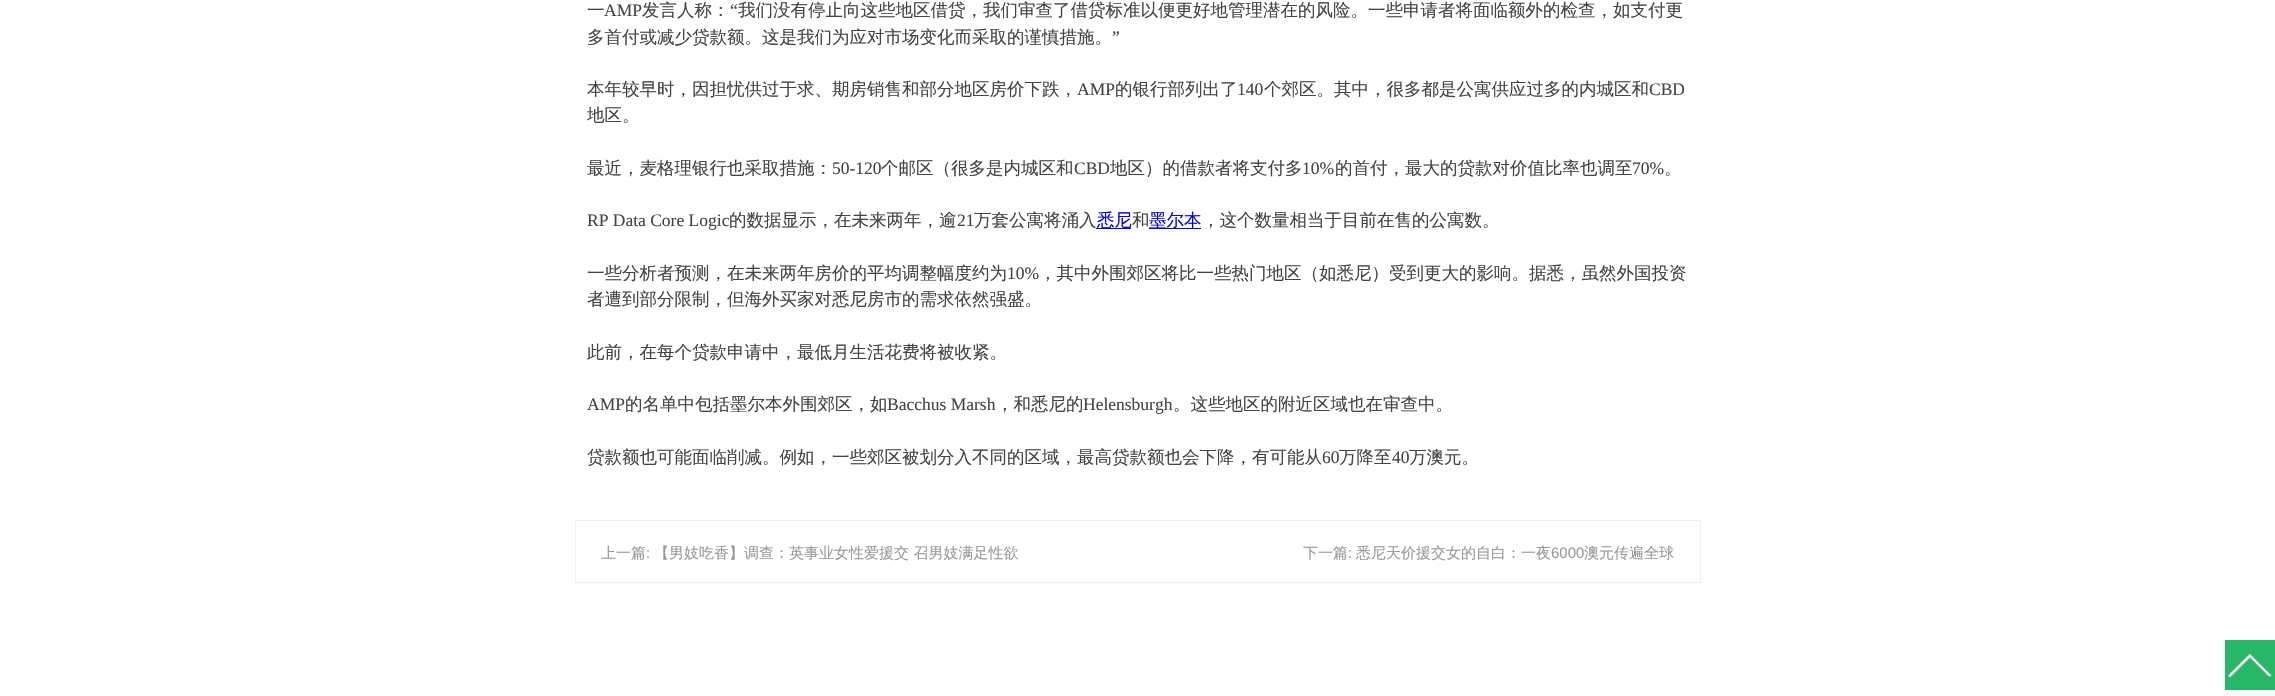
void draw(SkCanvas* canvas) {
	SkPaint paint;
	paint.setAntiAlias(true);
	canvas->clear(0xffffffff);
	SkFont f1(fontMgr->matchFamilyStyle("WenQuanYi Zen Hei", SkFontStyle(500, SkFontStyle::kNormal_Width, SkFontStyle::kUpright_Slant)), 17.5);
	f1.setSubpixel(true);
	paint.setColor(0xff444444);
	canvas->drawString("一", 587, 16, f1, paint);
	SkFont f2(fontMgr->matchFamilyStyle("Liberation Serif", SkFontStyle::Normal()), 17.5);
	f2.setSubpixel(true);
	canvas->drawString("AMP", 604, 16, f2, paint);
	canvas->drawString("发言人称：", 642, 16, f1, paint);
	canvas->drawString("“", 730, 16, f2, paint);
	canvas->drawString("我们没有停止向这些地区借贷，我们审查了借贷标准以便更好地管理潜在的风险。一些申请者将面临额外的检查，如支付更", 738, 16, f1, paint);
	canvas->drawString("多首付或减少贷款额。这是我们为应对市场变化而采取的谨慎措施。", 587, 43, f1, paint);
	canvas->drawString("”", 1112, 43, f2, paint);
	canvas->drawString("本年较早时，因担忧供过于求、期房销售和部分地区房价下跌，", 587, 95, f1, paint);
	canvas->drawString("AMP", 1077, 95, f2, paint);
	canvas->drawString("的银行部列出了", 1115, 95, f1, paint);
	canvas->drawString("140", 1237, 95, f2, paint);
	canvas->drawString("个郊区。其中，很多都是公寓供应过多的内城区和", 1264, 95, f1, paint);
	canvas->drawString("CBD", 1649, 95, f2, paint);
	canvas->drawString("地区。", 587, 121, f1, paint);
	canvas->drawString("最近，麦格理银行也采取措施：", 587, 174, f1, paint);
	canvas->drawString("50-120", 832, 174, f2, paint);
	canvas->drawString("个邮区（很多是内城区和", 881, 174, f1, paint);
	canvas->drawString("CBD", 1074, 174, f2, paint);
	canvas->drawString("地区）的借款者将支付多", 1110, 174, f1, paint);
	canvas->drawString("10%", 1302, 174, f2, paint);
	canvas->drawString("的首付，最大的贷款对价值比率也调至", 1335, 174, f1, paint);
	canvas->drawString("70%", 1632, 174, f2, paint);
	canvas->drawString("。", 1664, 174, f1, paint);
	canvas->drawString("RP Data Core Logic", 587, 226, f2, paint);
	canvas->drawString("的数据显示，在未来两年，逾", 729, 226, f1, paint);
	canvas->drawString("21", 957, 226, f2, paint);
	canvas->drawString("万套公寓将涌入", 974, 226, f1, paint);
	paint.setColor(0xff0000ee);
	canvas->drawRect(SkRect::MakeXYWH(1096, 228, 35, 1), paint);
	canvas->drawString("悉尼", 1097, 226, f1, paint);
	paint.setColor(0xff444444);
	canvas->drawString("和", 1132, 226, f1, paint);
	paint.setColor(0xff0000ee);
	canvas->drawRect(SkRect::MakeXYWH(1149, 228, 52, 1), paint);
	canvas->drawString("墨尔本", 1149, 226, f1, paint);
	paint.setColor(0xff444444);
	canvas->drawString("，这个数量相当于目前在售的公寓数。", 1202, 226, f1, paint);
	canvas->drawString("一些分析者预测，在未来两年房价的平均调整幅度约为", 587, 279, f1, paint);
	canvas->drawString("10%", 1007, 279, f2, paint);
	canvas->drawString("，其中外围郊区将比一些热门地区（如悉尼）受到更大的影响。据悉，虽然外国投资", 1039, 279, f1, paint);
	canvas->drawString("者遭到部分限制，但海外买家对悉尼房市的需求依然强盛。", 587, 305, f1, paint);
	canvas->drawString("此前，在每个贷款申请中，最低月生活花费将被收紧。", 587, 358, f1, paint);
	canvas->drawString("AMP", 587, 410, f2, paint);
	canvas->drawString("的名单中包括墨尔本外围郊区，如", 625, 410, f1, paint);
	canvas->drawString("Bacchus Marsh", 887, 410, f2, paint);
	canvas->drawString("，和悉尼的", 996, 410, f1, paint);
	canvas->drawString("Helensburgh", 1083, 410, f2, paint);
	canvas->drawString("。这些地区的附近区域也在审查中。", 1173, 410, f1, paint);
	canvas->drawString("贷款额也可能面临削减。例如，一些郊区被划分入不同的区域，最高贷款额也会下降，有可能从", 587, 463, f1, paint);
	canvas->drawString("60", 1322, 463, f2, paint);
	canvas->drawString("万降至", 1339, 463, f1, paint);
	canvas->drawString("40", 1392, 463, f2, paint);
	canvas->drawString("万澳元。", 1409, 463, f1, paint);
	paint.setStroke(true);
	paint.setStrokeWidth(1);
	paint.setColor(0xffefefef);
	canvas->drawRect(SkRect::MakeXYWH(575.5, 520.5, 1125, 62), paint);
	SkFont f3(fontMgr->matchFamilyStyle("WenQuanYi Zen Hei", SkFontStyle(500, SkFontStyle::kNormal_Width, SkFontStyle::kUpright_Slant)), 15);
	f3.setSubpixel(true);
	paint.setStroke(false);
	paint.setColor(0xff999999);
	canvas->drawString("上一篇", 601, 558, f3, paint);
	SkFont f4(fontMgr->matchFamilyStyle("Liberation Sans", SkFontStyle::Normal()), 15);
	f4.setSubpixel(true);
	canvas->drawString(":", 646, 558, f4, paint);
	canvas->drawString("【男妓吃香】调查：英事业女性爱援交 召男妓满足性欲", 654, 558, f3, paint);
	canvas->drawString("下一篇", 1303, 558, f3, paint);
	canvas->drawString(":", 1348, 558, f4, paint);
	canvas->drawString("悉尼天价援交女的自白：一夜", 1356, 558, f3, paint);
	canvas->drawString("6000", 1551, 558, f4, paint);
	canvas->drawString("澳元传遍全球", 1584, 558, f3, paint);
	paint.setColor(0xff28b768);
	canvas->drawRect(SkRect::MakeXYWH(2225, 640, 50, 50), paint);
	canvas->drawImageRect(SkImages::DeferredFromEncodedData(SkData::MakeFromFileName("img1.png")), SkRect::MakeXYWH(2227, 653, 45, 25), SkSamplingOptions());
}
